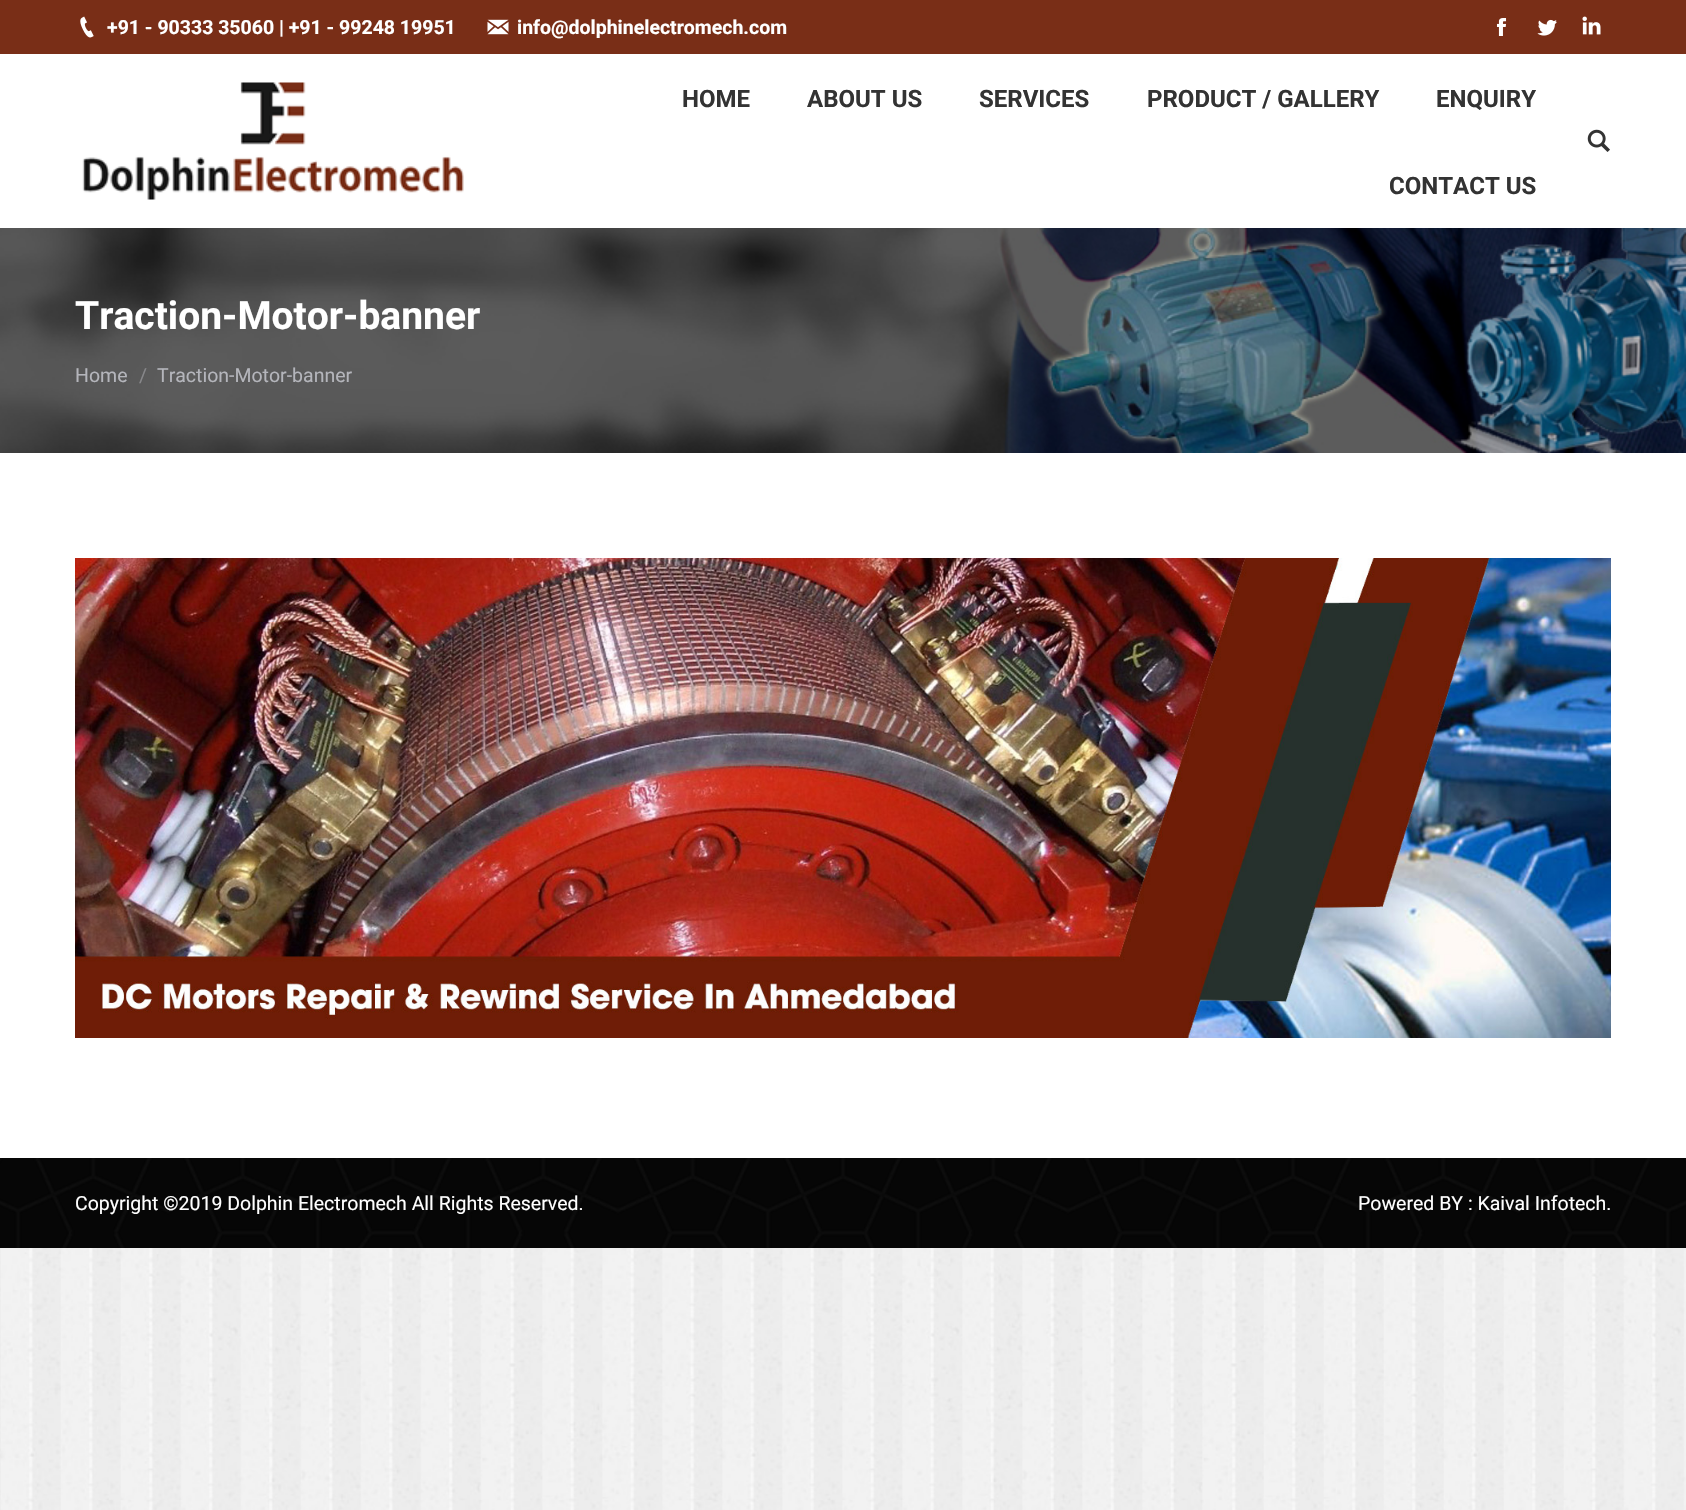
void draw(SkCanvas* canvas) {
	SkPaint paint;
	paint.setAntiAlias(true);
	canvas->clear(0xffffffff);
	canvas->drawImageRect(SkImages::DeferredFromEncodedData(SkData::MakeFromFileName("img1.png")), SkRect::MakeXYWH(0, 1248, 1686, 262), SkSamplingOptions());
	paint.setColor(0xff792e17);
	canvas->drawRect(SkRect::MakeXYWH(0, 0, 1686, 54), paint);
	canvas->drawImageRect(SkImages::DeferredFromEncodedData(SkData::MakeFromFileName("img2.png")), SkRect::MakeXYWH(80, 16, 14, 22), SkSamplingOptions());
	SkFont f1(fontMgr->matchFamilyStyle("Roboto", SkFontStyle::Bold()), 19.5);
	f1.setSubpixel(true);
	paint.setColor(0xffffffff);
	canvas->drawString("+91 - 90333 35060 | +91 - 99248 19951", 107, 34, f1, paint);
	canvas->drawImageRect(SkImages::DeferredFromEncodedData(SkData::MakeFromFileName("img3.png")), SkRect::MakeXYWH(487, 19, 22, 16), SkSamplingOptions());
	canvas->drawString("info@dolphinelectromech.com", 517, 34, f1, paint);
	canvas->drawImageRect(SkImages::DeferredFromEncodedData(SkData::MakeFromFileName("img4.png")), SkRect::MakeXYWH(1496, 18, 11, 18), SkSamplingOptions());
	canvas->drawImageRect(SkImages::DeferredFromEncodedData(SkData::MakeFromFileName("img5.png")), SkRect::MakeXYWH(1537, 19, 20, 17), SkSamplingOptions());
	canvas->drawImageRect(SkImages::DeferredFromEncodedData(SkData::MakeFromFileName("img6.png")), SkRect::MakeXYWH(1582, 16, 19, 19), SkSamplingOptions());
	canvas->drawImageRect(SkImages::DeferredFromEncodedData(SkData::MakeFromFileName("img7.png")), SkRect::MakeXYWH(82, 82, 382, 118), SkSamplingOptions());
	SkFont f2(fontMgr->matchFamilyStyle("Roboto", SkFontStyle::Bold()), 24);
	f2.setSubpixel(true);
	paint.setColor(0xff333333);
	canvas->drawString("HOME", 682, 107, f2, paint);
	canvas->drawString("ABOUT US", 807, 107, f2, paint);
	canvas->drawString("SERVICES", 979, 107, f2, paint);
	canvas->drawString("PRODUCT / GALLERY", 1147, 107, f2, paint);
	canvas->drawString("ENQUIRY", 1436, 107, f2, paint);
	canvas->drawString("CONTACT US", 1389, 194, f2, paint);
	canvas->drawImageRect(SkImages::DeferredFromEncodedData(SkData::MakeFromFileName("img8.png")), SkRect::MakeXYWH(1587, 129, 23, 23), SkSamplingOptions());
	canvas->drawImageRect(SkImages::DeferredFromEncodedData(SkData::MakeFromFileName("img9.png")), SkRect::MakeXYWH(0, 228, 1686, 225), SkSamplingOptions());
	SkFont f3(fontMgr->matchFamilyStyle("Roboto", SkFontStyle::Bold()), 39);
	f3.setSubpixel(true);
	paint.setColor(0xffffffff);
	canvas->drawString("Traction-Motor-banner", 75, 329, f3, paint);
	SkFont f4(fontMgr->matchFamilyStyle("Roboto", SkFontStyle::Normal()), 19.5);
	f4.setSubpixel(true);
	paint.setColor(0xffb4b5bb);
	canvas->drawString("Home", 75, 382, f4, paint);
	paint.setColor(0xff87878a);
	canvas->drawString("/", 139, 382, f4, paint);
	paint.setColor(0xffb4b5bb);
	canvas->drawString("Traction-Motor-banner", 157, 382, f4, paint);
	canvas->drawImageRect(SkImages::DeferredFromEncodedData(SkData::MakeFromFileName("img10.png")), SkRect::MakeXYWH(75, 558, 1536, 480), SkSamplingOptions());
	paint.setColor(0xff000000);
	canvas->drawRect(SkRect::MakeXYWH(0, 1158, 1686, 90), paint);
	canvas->drawImageRect(SkImages::DeferredFromEncodedData(SkData::MakeFromFileName("img11.png")), SkRect::MakeXYWH(0, 1158, 1686, 90), SkSamplingOptions());
	paint.setColor(0xffffffff);
	canvas->drawString("Copyright ©2019 Dolphin Electromech All Rights Reserved.", 75, 1210, f4, paint);
	canvas->drawString("Powered BY : Kaival Infotech.", 1358, 1210, f4, paint);
}
